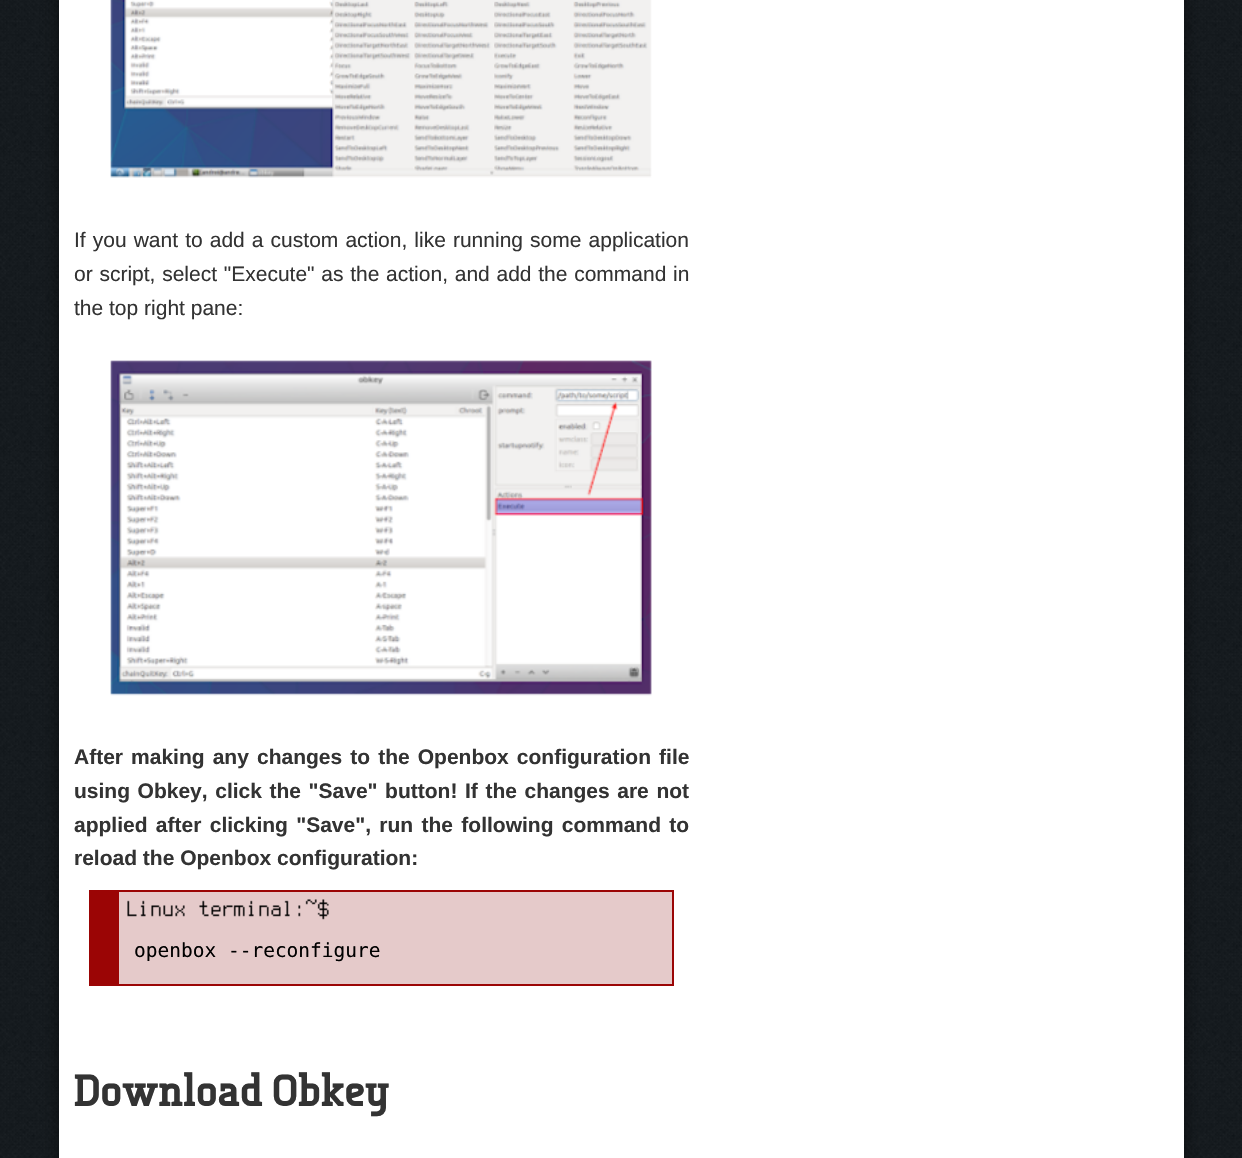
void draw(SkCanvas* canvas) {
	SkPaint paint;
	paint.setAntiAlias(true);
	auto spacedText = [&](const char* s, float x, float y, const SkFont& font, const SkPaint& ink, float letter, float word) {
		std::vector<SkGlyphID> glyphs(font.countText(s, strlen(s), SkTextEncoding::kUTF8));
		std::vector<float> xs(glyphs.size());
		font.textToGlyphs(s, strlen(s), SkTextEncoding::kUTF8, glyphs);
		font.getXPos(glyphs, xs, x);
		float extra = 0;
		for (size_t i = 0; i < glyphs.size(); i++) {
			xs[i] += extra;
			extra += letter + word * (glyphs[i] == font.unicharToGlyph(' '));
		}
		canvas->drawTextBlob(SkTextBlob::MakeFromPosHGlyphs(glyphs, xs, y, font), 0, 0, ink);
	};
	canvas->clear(0xffffffff);
	canvas->drawImageRect(SkImages::DeferredFromEncodedData(SkData::MakeFromFileName("img1.png")), SkRect::MakeXYWH(0, 0, 1242, 1158), SkSamplingOptions());
	paint.setColor(0x80000000);
	paint.setMaskFilter(SkMaskFilter::MakeBlur(kNormal_SkBlurStyle, 7.5));
	canvas->drawRect(SkRect::MakeXYWH(59, -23, 1125, 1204), paint);
	paint.setMaskFilter(nullptr);
	paint.setColor(0xffffffff);
	canvas->drawRect(SkRect::MakeXYWH(59, 0, 1125, 1158), paint);
	canvas->drawImageRect(SkImages::DeferredFromEncodedData(SkData::MakeFromFileName("img2.png")), SkRect::MakeXYWH(110, 0, 542, 178), SkSamplingOptions());
	SkFont f1(fontMgr->matchFamilyStyle("Liberation Sans", SkFontStyle::Normal()), 21);
	f1.setSubpixel(true);
	paint.setColor(0xff333333);
	spacedText("If you want to add a custom action, like running some application", 74, 247, f1, paint, 0, 1.25);
	spacedText("or script, select \"Execute\" as the action, and add the command in", 74, 281, f1, paint, 0, 0.9);
	canvas->drawString("the top right pane:", 74, 315, f1, paint);
	canvas->drawImageRect(SkImages::DeferredFromEncodedData(SkData::MakeFromFileName("img3.png")), SkRect::MakeXYWH(110, 360, 542, 336), SkSamplingOptions());
	SkFont f2(fontMgr->matchFamilyStyle("Liberation Sans", SkFontStyle::Bold()), 21);
	f2.setSubpixel(true);
	spacedText("After making any changes to the Openbox configuration file", 74, 764, f2, paint, 0, 2.25);
	spacedText("using Obkey, click the \"Save\" button! If the changes are not", 74, 798, f2, paint, 0, 1.75);
	spacedText("applied after clicking \"Save\", run the following command to", 74, 832, f2, paint, 0, 2.5);
	canvas->drawString("reload the Openbox configuration:", 74, 865, f2, paint);
	paint.setColor(0xffe5caca);
	canvas->drawRect(SkRect::MakeXYWH(119, 928, 553, 56), paint);
	canvas->drawImageRect(SkImages::DeferredFromEncodedData(SkData::MakeFromFileName("img4.png")), SkRect::MakeXYWH(119, 892, 553, 36), SkSamplingOptions());
	paint.setColor(0xff9b0505);
	canvas->drawRect(SkRect::MakeXYWH(119, 890, 555, 2), paint);
	canvas->drawRect(SkRect::MakeXYWH(672, 890, 2, 96), paint);
	canvas->drawRect(SkRect::MakeXYWH(119, 984, 555, 2), paint);
	canvas->drawRect(SkRect::MakeXYWH(89, 890, 30, 96), paint);
	SkFont f3(fontMgr->matchFamilyStyle("DejaVu Sans Mono", SkFontStyle::Normal()), 19.5);
	f3.setSubpixel(true);
	paint.setColor(0xff000000);
	canvas->drawString("openbox --reconfigure", 134, 957, f3, paint);
	SkFont f4(fontMgr->matchFamilyStyle("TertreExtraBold", SkFontStyle(800, SkFontStyle::kNormal_Width, SkFontStyle::kUpright_Slant)), 45);
	f4.setSubpixel(true);
	paint.setColor(0xff333333);
	canvas->drawString("Download Obkey", 74, 1106, f4, paint);
}
